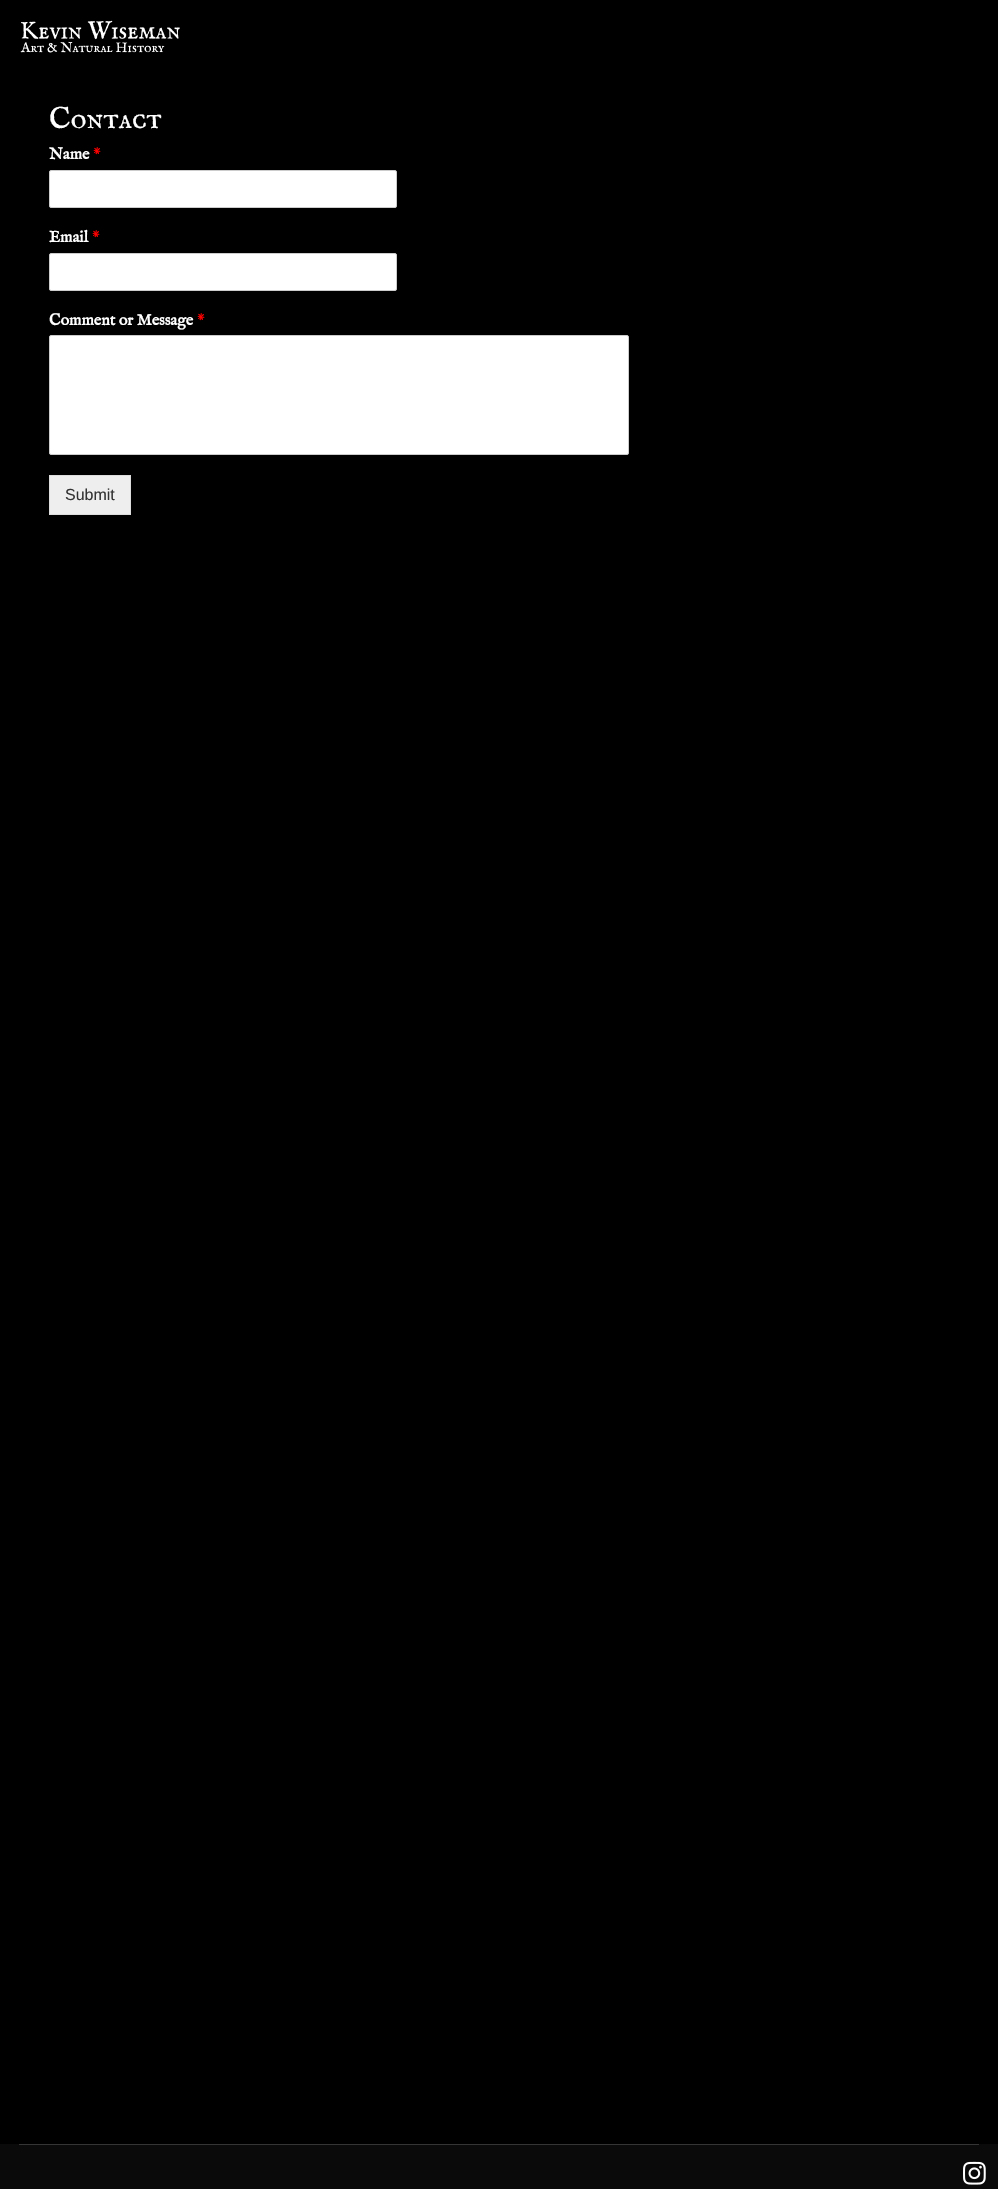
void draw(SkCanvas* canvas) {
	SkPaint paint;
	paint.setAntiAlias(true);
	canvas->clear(0xff000000);
	canvas->drawImageRect(SkImages::DeferredFromEncodedData(SkData::MakeFromFileName("img1.png")), SkRect::MakeXYWH(20, 20, 160, 33), SkSamplingOptions());
	SkFont f1(fontMgr->matchFamilyStyle("IM FELL English SC", SkFontStyle::Normal()), 30);
	f1.setSubpixel(true);
	paint.setColor(0xffffffff);
	canvas->drawString("Contact", 49, 128, f1, paint);
	SkFont f2(fontMgr->matchFamilyStyle("IM FELL English", SkFontStyle::Bold()), 16);
	f2.setSubpixel(true);
	canvas->drawString("Name", 49, 159, f2, paint);
	SkFont f3(fontMgr->matchFamilyStyle("IM FELL English", SkFontStyle::Normal()), 16);
	f3.setSubpixel(true);
	paint.setColor(0xffff0000);
	canvas->drawString("*", 93, 159, f3, paint);
	paint.setColor(0xffffffff);
	canvas->drawRoundRect(SkRect::MakeXYWH(49.5, 170.5, 347, 37), 1.5, 1.5, paint);
	paint.setStroke(true);
	paint.setStrokeWidth(1);
	paint.setColor(0xffcccccc);
	canvas->drawRoundRect(SkRect::MakeXYWH(49.5, 170.5, 347, 37), 1.5, 1.5, paint);
	paint.setStroke(false);
	paint.setColor(0xffffffff);
	canvas->drawString("Email", 49, 242, f2, paint);
	paint.setColor(0xffff0000);
	canvas->drawString("*", 92, 242, f3, paint);
	paint.setColor(0xffffffff);
	canvas->drawRoundRect(SkRect::MakeXYWH(49.5, 253.5, 347, 37), 1.5, 1.5, paint);
	paint.setStroke(true);
	paint.setColor(0xffcccccc);
	canvas->drawRoundRect(SkRect::MakeXYWH(49.5, 253.5, 347, 37), 1.5, 1.5, paint);
	paint.setStroke(false);
	paint.setColor(0xffffffff);
	canvas->drawString("Comment or Message", 49, 325, f2, paint);
	paint.setColor(0xffff0000);
	canvas->drawString("*", 197, 325, f3, paint);
	paint.setColor(0xffffffff);
	canvas->drawRoundRect(SkRect::MakeXYWH(49.5, 335.5, 579, 119), 1.5, 1.5, paint);
	paint.setStroke(true);
	paint.setColor(0xffcccccc);
	canvas->drawRoundRect(SkRect::MakeXYWH(49.5, 335.5, 579, 119), 1.5, 1.5, paint);
	paint.setStroke(false);
	paint.setColor(0xffeeeeee);
	canvas->drawRect(SkRect::MakeXYWH(49.5, 475.5, 81, 39), paint);
	paint.setStroke(true);
	paint.setColor(0xffdddddd);
	canvas->drawRect(SkRect::MakeXYWH(49.5, 475.5, 81, 39), paint);
	SkFont f4(fontMgr->matchFamilyStyle("Liberation Sans", SkFontStyle::Normal()), 16);
	f4.setSubpixel(true);
	paint.setStroke(false);
	paint.setColor(0xff333333);
	canvas->drawString("Submit", 65, 500, f4, paint);
	paint.setColor(0xff0a0a0a);
	canvas->drawRect(SkRect::MakeXYWH(0, 2144, 998, 45), paint);
	paint.setColor(0xff353535);
	canvas->drawRect(SkRect::MakeXYWH(19, 2144, 960, 1), paint);
	canvas->drawImageRect(SkImages::DeferredFromEncodedData(SkData::MakeFromFileName("img2.png")), SkRect::MakeXYWH(963, 2161, 23, 24), SkSamplingOptions());
}
